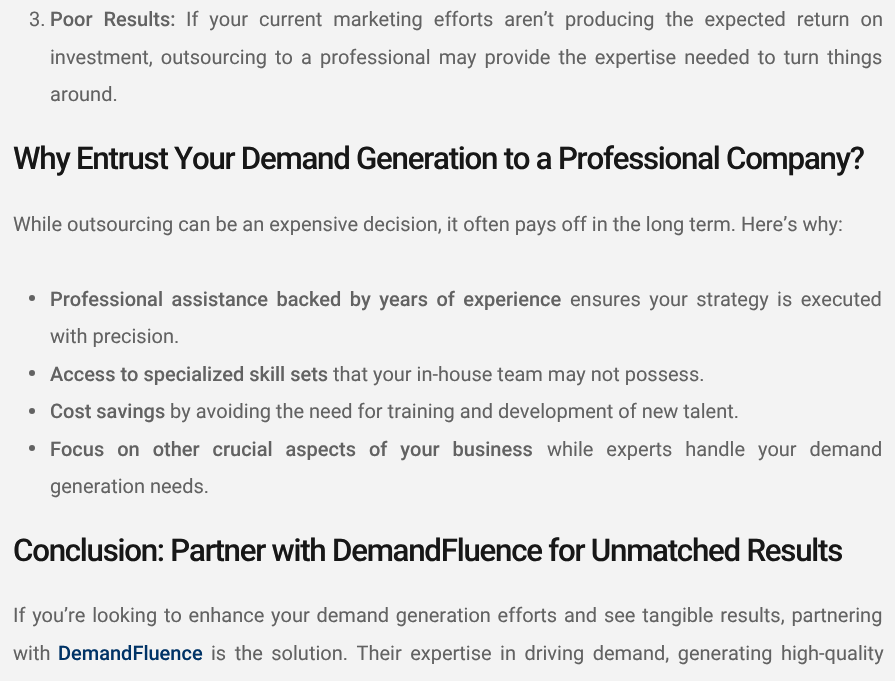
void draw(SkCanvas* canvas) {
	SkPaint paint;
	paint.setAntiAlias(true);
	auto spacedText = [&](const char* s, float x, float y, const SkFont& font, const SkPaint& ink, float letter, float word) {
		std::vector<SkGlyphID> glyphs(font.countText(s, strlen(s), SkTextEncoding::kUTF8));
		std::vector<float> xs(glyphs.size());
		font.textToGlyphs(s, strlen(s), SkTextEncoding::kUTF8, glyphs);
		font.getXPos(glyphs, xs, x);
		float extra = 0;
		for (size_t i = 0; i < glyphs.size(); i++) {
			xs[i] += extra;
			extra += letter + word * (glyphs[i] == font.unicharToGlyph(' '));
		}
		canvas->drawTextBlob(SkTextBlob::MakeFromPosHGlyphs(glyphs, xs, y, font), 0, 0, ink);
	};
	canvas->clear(0xfff3f3f3);
	SkFont f1(fontMgr->matchFamilyStyle("Roboto", SkFontStyle::Normal()), 20);
	f1.setSubpixel(true);
	paint.setColor(0xff626262);
	canvas->drawString("3.", 29, 26, f1, paint);
	SkFont f2(fontMgr->matchFamilyStyle("Roboto", SkFontStyle(500, SkFontStyle::kNormal_Width, SkFontStyle::kUpright_Slant)), 20);
	f2.setSubpixel(true);
	spacedText("Poor Results:", 50, 26, f2, paint, 0, 6);
	spacedText("If your current marketing efforts aren’t producing the expected return on", 186, 26, f1, paint, 0, 6);
	spacedText("investment, outsourcing to a professional may provide the expertise needed to turn things", 50, 64, f1, paint, 0, 3.1);
	canvas->drawString("around.", 50, 101, f1, paint);
	SkFont f3(fontMgr->matchFamilyStyle("Roboto", SkFontStyle(500, SkFontStyle::kNormal_Width, SkFontStyle::kUpright_Slant)), 31.25);
	f3.setSubpixel(true);
	paint.setColor(0xff171717);
	spacedText("Why Entrust Your Demand Generation to a Professional Company?", 13, 169, f3, paint, -1.25, 0);
	paint.setColor(0xff626262);
	canvas->drawString("While outsourcing can be an expensive decision, it often pays off in the long term. Here’s why:", 13, 231, f1, paint);
	canvas->drawCircle(32, 298, 3, paint);
	spacedText("Professional assistance backed by years of experience", 50, 306, f2, paint, 0, 3.5);
	spacedText("ensures your strategy is executed", 570, 306, f1, paint, 0, 3.5);
	canvas->drawString("with precision.", 50, 343, f1, paint);
	canvas->drawCircle(32, 373, 3, paint);
	canvas->drawString("Access to specialized skill sets", 50, 381, f2, paint);
	canvas->drawString("that your in-house team may not possess.", 333, 381, f1, paint);
	canvas->drawCircle(32, 411, 3, paint);
	canvas->drawString("Cost savings", 50, 418, f2, paint);
	canvas->drawString("by avoiding the need for training and development of new talent.", 170, 418, f1, paint);
	canvas->drawCircle(32, 448, 3, paint);
	spacedText("Focus on other crucial aspects of your business", 50, 456, f2, paint, 0, 8);
	spacedText("while experts handle your demand", 547, 456, f1, paint, 0, 8);
	canvas->drawString("generation needs.", 50, 493, f1, paint);
	paint.setColor(0xff171717);
	spacedText("Conclusion: Partner with DemandFluence for Unmatched Results", 13, 561, f3, paint, -1.25, 0);
	paint.setColor(0xff626262);
	spacedText("If you’re looking to enhance your demand generation efforts and see tangible results, partnering", 13, 622, f1, paint, 0, 1.8);
	canvas->drawString("with", 13, 660, f1, paint);
	paint.setColor(0xff003366);
	canvas->drawString("DemandFluence", 58, 660, f2, paint);
	paint.setColor(0xff626262);
	spacedText("is the solution. Their expertise in driving demand, generating high-quality", 211, 660, f1, paint, 0, 3.5);
}
